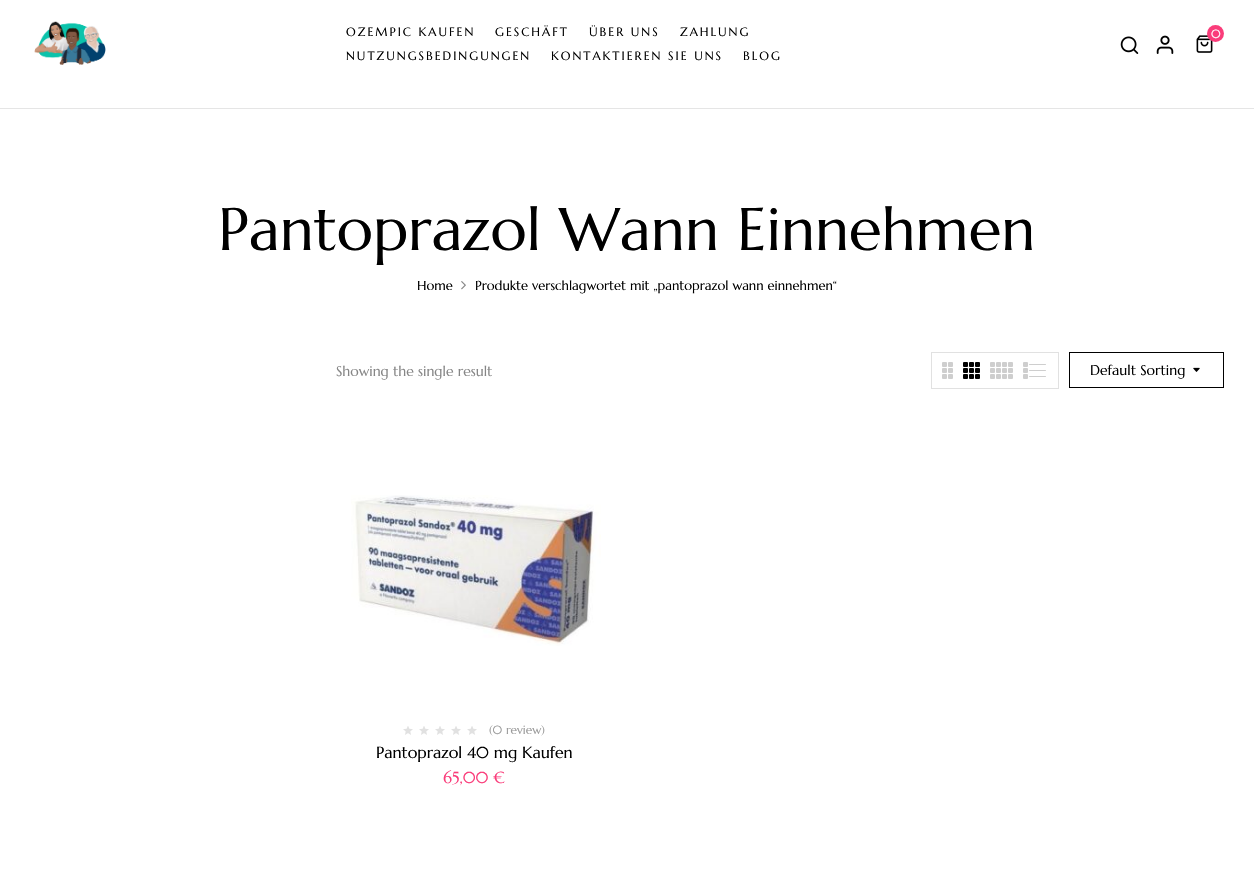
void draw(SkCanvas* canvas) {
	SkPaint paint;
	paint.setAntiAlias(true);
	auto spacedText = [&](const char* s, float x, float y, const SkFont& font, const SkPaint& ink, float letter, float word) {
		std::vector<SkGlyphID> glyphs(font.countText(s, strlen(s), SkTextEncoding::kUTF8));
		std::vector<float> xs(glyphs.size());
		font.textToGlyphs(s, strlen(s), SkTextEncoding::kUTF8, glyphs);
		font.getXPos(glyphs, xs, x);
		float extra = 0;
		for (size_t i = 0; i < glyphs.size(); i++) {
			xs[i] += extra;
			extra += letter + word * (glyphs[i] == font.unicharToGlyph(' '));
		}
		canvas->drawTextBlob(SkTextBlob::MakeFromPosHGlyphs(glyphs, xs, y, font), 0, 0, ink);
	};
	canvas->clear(0xffffffff);
	paint.setColor(0xffe5e5e5);
	canvas->drawRect(SkRect::MakeXYWH(0, 108, 1254, 1), paint);
	canvas->drawImageRect(SkImages::DeferredFromEncodedData(SkData::MakeFromFileName("img1.png")), SkRect::MakeXYWH(34, 21, 72, 44), SkSamplingOptions());
	SkFont f1(fontMgr->matchFamilyStyle("Marcellus", SkFontStyle::Normal()), 12);
	f1.setSubpixel(true);
	paint.setColor(0xff000000);
	spacedText("OZEMPIC KAUFEN", 346, 36, f1, paint, 2, 0);
	spacedText("GESCHÄFT", 495, 36, f1, paint, 2, 0);
	spacedText("ÜBER UNS", 589, 36, f1, paint, 2, 0);
	spacedText("ZAHLUNG", 680, 36, f1, paint, 2, 0);
	spacedText("NUTZUNGSBEDINGUNGEN", 346, 60, f1, paint, 2, 0);
	spacedText("KONTAKTIEREN SIE UNS", 551, 60, f1, paint, 2, 0);
	spacedText("BLOG", 743, 60, f1, paint, 2, 0);
	canvas->drawImageRect(SkImages::DeferredFromEncodedData(SkData::MakeFromFileName("img2.png")), SkRect::MakeXYWH(1196, 35, 17, 18), SkSamplingOptions());
	paint.setColor(0xfffa3c7a);
	canvas->drawCircle(1215.5, 33.5, 8.5, paint);
	paint.setColor(0xffffffff);
	canvas->drawString("0", 1211, 38, f1, paint);
	canvas->drawImageRect(SkImages::DeferredFromEncodedData(SkData::MakeFromFileName("img3.png")), SkRect::MakeXYWH(1120, 36, 19, 18), SkSamplingOptions());
	canvas->drawImageRect(SkImages::DeferredFromEncodedData(SkData::MakeFromFileName("img4.png")), SkRect::MakeXYWH(1156, 35, 18, 19), SkSamplingOptions());
	SkFont f2(fontMgr->matchFamilyStyle("Marcellus", SkFontStyle::Normal()), 60);
	f2.setSubpixel(true);
	paint.setColor(0xff000000);
	canvas->drawString("Pantoprazol Wann Einnehmen", 218, 250, f2, paint);
	SkFont f3(fontMgr->matchFamilyStyle("Marcellus", SkFontStyle::Normal()), 13);
	f3.setSubpixel(true);
	canvas->drawString("Home", 417, 290, f3, paint);
	canvas->drawImageRect(SkImages::DeferredFromEncodedData(SkData::MakeFromFileName("img5.png")), SkRect::MakeXYWH(461, 281, 5, 9), SkSamplingOptions());
	canvas->drawString("Produkte verschlagwortet mit „pantoprazol wann einnehmen“", 475, 290, f3, paint);
	SkFont f4(fontMgr->matchFamilyStyle("Marcellus", SkFontStyle::Normal()), 14);
	f4.setSubpixel(true);
	paint.setColor(0xff868686);
	canvas->drawString("Showing the single result", 336, 376, f4, paint);
	paint.setStroke(true);
	paint.setStrokeWidth(1);
	paint.setColor(0xffe1e1e1);
	canvas->drawRect(SkRect::MakeXYWH(931.5, 352.5, 127, 36), paint);
	paint.setStroke(false);
	paint.setColor(0xffcecece);
	canvas->drawRoundRect(SkRect::MakeXYWH(942, 362, 5, 5), 1, 1, paint);
	canvas->drawRoundRect(SkRect::MakeXYWH(948, 362, 5, 5), 1, 1, paint);
	canvas->drawRoundRect(SkRect::MakeXYWH(942, 368, 5, 5), 1, 1, paint);
	canvas->drawRoundRect(SkRect::MakeXYWH(948, 368, 5, 5), 1, 1, paint);
	canvas->drawRoundRect(SkRect::MakeXYWH(942, 374, 5, 5), 1, 1, paint);
	canvas->drawRoundRect(SkRect::MakeXYWH(948, 374, 5, 5), 1, 1, paint);
	paint.setColor(0xff000000);
	canvas->drawRoundRect(SkRect::MakeXYWH(963, 362, 5, 5), 1, 1, paint);
	canvas->drawRoundRect(SkRect::MakeXYWH(969, 362, 5, 5), 1, 1, paint);
	canvas->drawRoundRect(SkRect::MakeXYWH(975, 362, 5, 5), 1, 1, paint);
	canvas->drawRoundRect(SkRect::MakeXYWH(963, 368, 5, 5), 1, 1, paint);
	canvas->drawRoundRect(SkRect::MakeXYWH(969, 368, 5, 5), 1, 1, paint);
	canvas->drawRoundRect(SkRect::MakeXYWH(975, 368, 5, 5), 1, 1, paint);
	canvas->drawRoundRect(SkRect::MakeXYWH(963, 374, 5, 5), 1, 1, paint);
	canvas->drawRoundRect(SkRect::MakeXYWH(969, 374, 5, 5), 1, 1, paint);
	canvas->drawRoundRect(SkRect::MakeXYWH(975, 374, 5, 5), 1, 1, paint);
	paint.setColor(0xffcecece);
	canvas->drawRoundRect(SkRect::MakeXYWH(990, 362, 5, 5), 1, 1, paint);
	canvas->drawRoundRect(SkRect::MakeXYWH(996, 362, 5, 5), 1, 1, paint);
	canvas->drawRoundRect(SkRect::MakeXYWH(1002, 362, 5, 5), 1, 1, paint);
	canvas->drawRoundRect(SkRect::MakeXYWH(1008, 362, 5, 5), 1, 1, paint);
	canvas->drawRoundRect(SkRect::MakeXYWH(990, 368, 5, 5), 1, 1, paint);
	canvas->drawRoundRect(SkRect::MakeXYWH(996, 368, 5, 5), 1, 1, paint);
	canvas->drawRoundRect(SkRect::MakeXYWH(1002, 368, 5, 5), 1, 1, paint);
	canvas->drawRoundRect(SkRect::MakeXYWH(1008, 368, 5, 5), 1, 1, paint);
	canvas->drawRoundRect(SkRect::MakeXYWH(990, 374, 5, 5), 1, 1, paint);
	canvas->drawRoundRect(SkRect::MakeXYWH(996, 374, 5, 5), 1, 1, paint);
	canvas->drawRoundRect(SkRect::MakeXYWH(1002, 374, 5, 5), 1, 1, paint);
	canvas->drawRoundRect(SkRect::MakeXYWH(1008, 374, 5, 5), 1, 1, paint);
	canvas->drawRoundRect(SkRect::MakeXYWH(1023, 362, 5, 5), 1, 1, paint);
	canvas->drawRoundRect(SkRect::MakeXYWH(1029, 364, 17, 1), 0.5, 0.5, paint);
	canvas->drawRoundRect(SkRect::MakeXYWH(1023, 368, 5, 5), 1, 1, paint);
	canvas->drawRoundRect(SkRect::MakeXYWH(1029, 370, 17, 1), 0.5, 0.5, paint);
	canvas->drawRoundRect(SkRect::MakeXYWH(1023, 374, 5, 5), 1, 1, paint);
	canvas->drawRoundRect(SkRect::MakeXYWH(1029, 376, 17, 1), 0.5, 0.5, paint);
	paint.setStroke(true);
	paint.setColor(0xff000000);
	canvas->drawRect(SkRect::MakeXYWH(1069.5, 352.5, 154, 35), paint);
	paint.setStroke(false);
	canvas->drawString("Default Sorting", 1090, 375, f4, paint);
	canvas->drawImageRect(SkImages::DeferredFromEncodedData(SkData::MakeFromFileName("img6.png")), SkRect::MakeXYWH(1193, 367, 7, 5), SkSamplingOptions());
	canvas->drawImageRect(SkImages::DeferredFromEncodedData(SkData::MakeFromFileName("img7.png")), SkRect::MakeXYWH(351, 495, 250, 151), SkSamplingOptions());
	canvas->drawImageRect(SkImages::DeferredFromEncodedData(SkData::MakeFromFileName("img8.png")), SkRect::MakeXYWH(403, 726, 74, 9), SkSamplingOptions());
	paint.setColor(0xff9b9b9b);
	canvas->drawString("(0 review)", 489, 734, f1, paint);
	SkFont f5(fontMgr->matchFamilyStyle("Marcellus", SkFontStyle::Normal()), 16);
	f5.setSubpixel(true);
	paint.setColor(0xff000000);
	canvas->drawString("Pantoprazol 40 mg Kaufen", 376, 758, f5, paint);
	paint.setColor(0xfffa3c7a);
	canvas->drawString("65,00 €", 443, 783, f5, paint);
}
